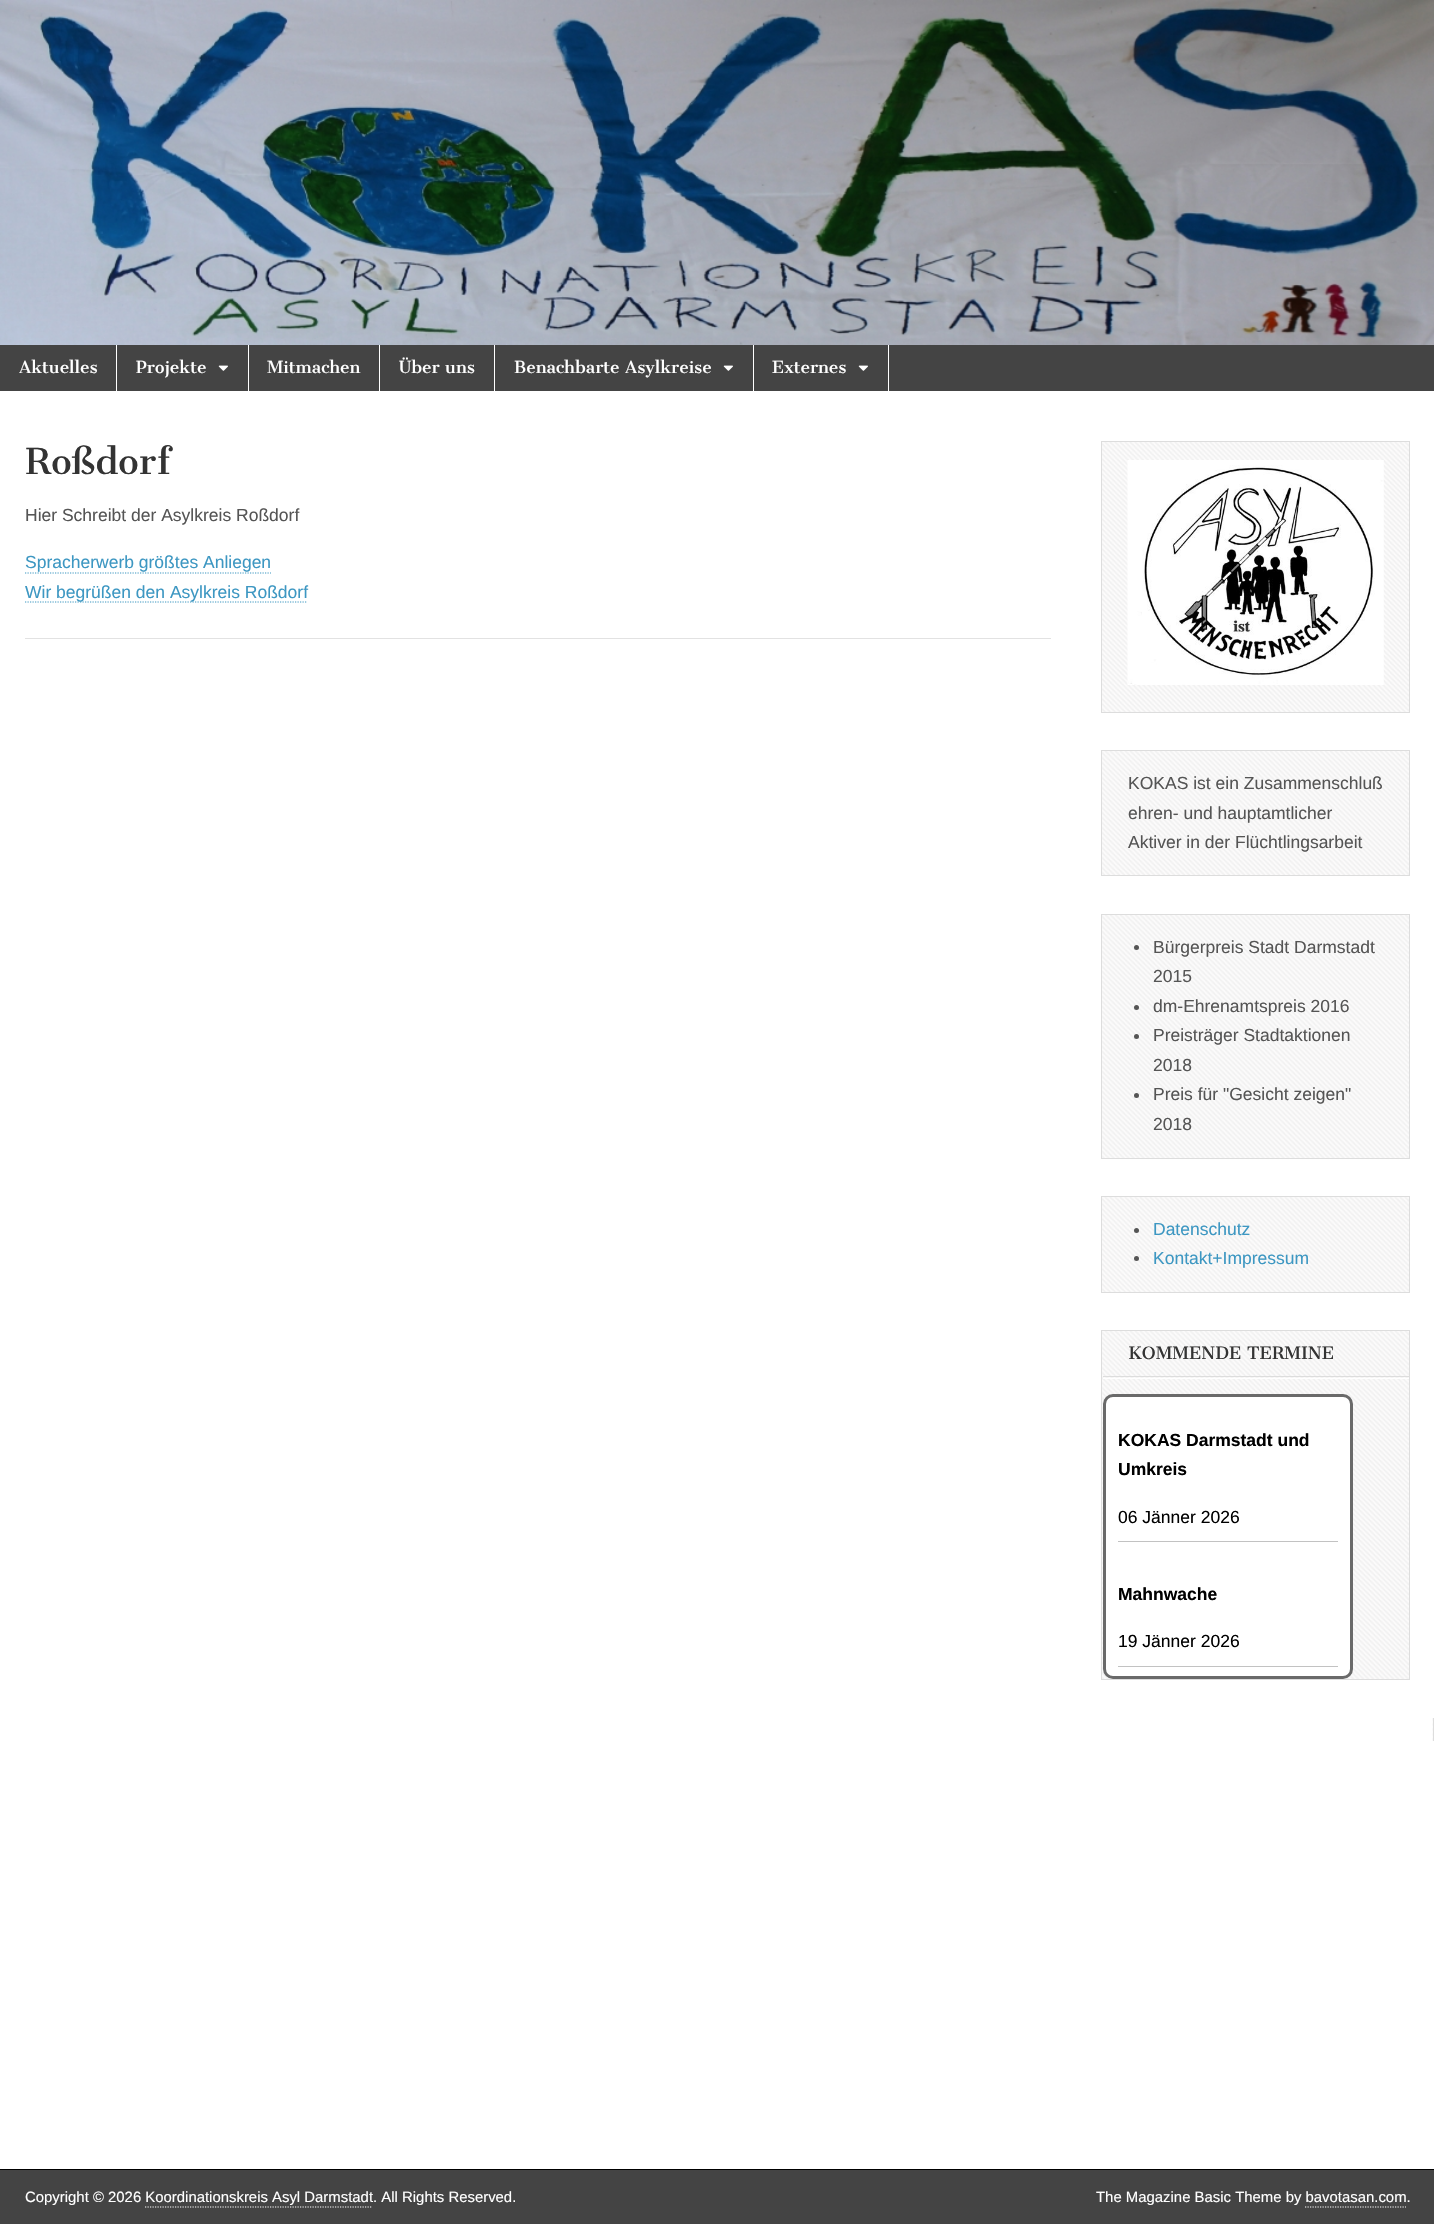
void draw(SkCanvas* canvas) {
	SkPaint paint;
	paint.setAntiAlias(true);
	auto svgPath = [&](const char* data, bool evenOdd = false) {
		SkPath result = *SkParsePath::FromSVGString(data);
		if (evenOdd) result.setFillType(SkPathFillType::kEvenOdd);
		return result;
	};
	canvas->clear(0xffffffff);
	canvas->drawImageRect(SkImages::DeferredFromEncodedData(SkData::MakeFromFileName("img1.png")), SkRect::MakeXYWH(0, 0, 1434, 345), SkSamplingOptions());
	paint.setColor(0xff444444);
	canvas->drawRect(SkRect::MakeXYWH(0, 345, 1434, 46), paint);
	paint.setColor(0xffffffff);
	canvas->drawRect(SkRect::MakeXYWH(116, 345, 1, 46), paint);
	SkFont f1(fontMgr->matchFamilyStyle("Cantata One", SkFontStyle::Normal()), 16.25);
	f1.setSubpixel(true);
	canvas->drawString("Aktuelles", 19, 373, f1, paint);
	canvas->drawRect(SkRect::MakeXYWH(248, 345, 1, 46), paint);
	canvas->drawString("Projekte", 136, 373, f1, paint);
	canvas->drawImageRect(SkImages::DeferredFromEncodedData(SkData::MakeFromFileName("img2.png")), SkRect::MakeXYWH(218, 365, 10, 6), SkSamplingOptions());
	canvas->drawRect(SkRect::MakeXYWH(379, 345, 1, 46), paint);
	canvas->drawString("Mitmachen", 267, 373, f1, paint);
	canvas->drawRect(SkRect::MakeXYWH(494, 345, 1, 46), paint);
	canvas->drawString("Über uns", 399, 373, f1, paint);
	canvas->drawRect(SkRect::MakeXYWH(753, 345, 1, 46), paint);
	canvas->drawString("Benachbarte Asylkreise", 514, 373, f1, paint);
	canvas->drawImageRect(SkImages::DeferredFromEncodedData(SkData::MakeFromFileName("img2.png")), SkRect::MakeXYWH(723, 365, 10, 6), SkSamplingOptions());
	canvas->drawRect(SkRect::MakeXYWH(888, 345, 1, 46), paint);
	canvas->drawString("Externes", 772, 373, f1, paint);
	canvas->drawImageRect(SkImages::DeferredFromEncodedData(SkData::MakeFromFileName("img2.png")), SkRect::MakeXYWH(858, 365, 10, 6), SkSamplingOptions());
	paint.setColor(0xffe2e2e2);
	canvas->drawRect(SkRect::MakeXYWH(25, 638, 1026, 1), paint);
	SkFont f2(fontMgr->matchFamilyStyle("Cantata One", SkFontStyle::Normal()), 35);
	f2.setSubpixel(true);
	paint.setColor(0xff333333);
	canvas->drawString("Roßdorf", 25, 474, f2, paint);
	SkFont f3(fontMgr->matchFamilyStyle("Liberation Sans", SkFontStyle::Normal()), 17.5);
	f3.setSubpixel(true);
	paint.setColor(0xff555555);
	canvas->drawString("Hier Schreibt der Asylkreis Roßdorf", 25, 521, f3, paint);
	paint.setColor(0xff3d97c2);
	canvas->drawString("Spracherwerb größtes Anliegen", 25, 568, f3, paint);
	paint.setStroke(true);
	paint.setStrokeWidth(1.2);
	paint.setPathEffect(SkDashPathEffect::Make({{1.25f, 1.25f}}, 0));
	canvas->drawPath(svgPath("M25 573H271"), paint);
	paint.setPathEffect(nullptr);
	paint.setPathEffect(SkDashPathEffect::Make({{1.25f, 1.25f}}, 0));
	canvas->drawPath(svgPath("M25 602H307.5"), paint);
	paint.setPathEffect(nullptr);
	paint.setStroke(false);
	canvas->drawString("Wir begrüßen den Asylkreis Roßdorf", 25, 598, f3, paint);
	canvas->drawImageRect(SkImages::DeferredFromEncodedData(SkData::MakeFromFileName("img3.png")), SkRect::MakeXYWH(1102, 442, 307, 270), SkSamplingOptions());
	paint.setStroke(true);
	paint.setStrokeWidth(1);
	paint.setColor(0xffdddddd);
	canvas->drawRect(SkRect::MakeXYWH(1101.5, 441.5, 308, 271), paint);
	canvas->drawImageRect(SkImages::DeferredFromEncodedData(SkData::MakeFromFileName("img4.png")), SkRect::MakeXYWH(1127, 460, 257, 225), SkSamplingOptions());
	canvas->drawImageRect(SkImages::DeferredFromEncodedData(SkData::MakeFromFileName("img5.png")), SkRect::MakeXYWH(1102, 751, 307, 124), SkSamplingOptions());
	canvas->drawRect(SkRect::MakeXYWH(1101.5, 750.5, 308, 125), paint);
	paint.setStroke(false);
	paint.setColor(0xff555555);
	canvas->drawString("KOKAS ist ein Zusammenschluß", 1128, 789, f3, paint);
	canvas->drawString("ehren- und hauptamtlicher", 1128, 819, f3, paint);
	canvas->drawString("Aktiver in der Flüchtlingsarbeit", 1128, 848, f3, paint);
	canvas->drawImageRect(SkImages::DeferredFromEncodedData(SkData::MakeFromFileName("img6.png")), SkRect::MakeXYWH(1102, 915, 307, 243), SkSamplingOptions());
	paint.setStroke(true);
	paint.setColor(0xffdddddd);
	canvas->drawRect(SkRect::MakeXYWH(1101.5, 914.5, 308, 244), paint);
	paint.setStroke(false);
	paint.setColor(0xff555555);
	canvas->drawCircle(1136.5, 947.5, 2.5, paint);
	canvas->drawString("Bürgerpreis Stadt Darmstadt", 1153, 953, f3, paint);
	canvas->drawString("2015", 1153, 982, f3, paint);
	canvas->drawCircle(1136.5, 1007.5, 2.5, paint);
	canvas->drawString("dm-Ehrenamtspreis 2016", 1153, 1012, f3, paint);
	canvas->drawCircle(1136.5, 1036.5, 2.5, paint);
	canvas->drawString("Preisträger Stadtaktionen", 1153, 1041, f3, paint);
	canvas->drawString("2018", 1153, 1071, f3, paint);
	canvas->drawCircle(1136.5, 1095.5, 2.5, paint);
	canvas->drawString("Preis für \"Gesicht zeigen\"", 1153, 1100, f3, paint);
	canvas->drawString("2018", 1153, 1130, f3, paint);
	canvas->drawImageRect(SkImages::DeferredFromEncodedData(SkData::MakeFromFileName("img7.png")), SkRect::MakeXYWH(1102, 1197, 307, 95), SkSamplingOptions());
	paint.setStroke(true);
	paint.setColor(0xffdddddd);
	canvas->drawRect(SkRect::MakeXYWH(1101.5, 1196.5, 308, 96), paint);
	paint.setStroke(false);
	paint.setColor(0xff555555);
	canvas->drawCircle(1136.5, 1230.5, 2.5, paint);
	paint.setColor(0xff3d97c2);
	canvas->drawString("Datenschutz", 1153, 1235, f3, paint);
	paint.setColor(0xff555555);
	canvas->drawCircle(1136.5, 1258.5, 2.5, paint);
	paint.setColor(0xff3d97c2);
	canvas->drawString("Kontakt+Impressum", 1153, 1264, f3, paint);
	canvas->drawImageRect(SkImages::DeferredFromEncodedData(SkData::MakeFromFileName("img8.png")), SkRect::MakeXYWH(1102, 1331, 307, 348), SkSamplingOptions());
	paint.setStroke(true);
	paint.setColor(0xffdddddd);
	canvas->drawRect(SkRect::MakeXYWH(1101.5, 1330.5, 308, 349), paint);
	paint.setStroke(false);
	paint.setColor(0xffffffff);
	canvas->drawPath(svgPath("M1103 1378V1379H1409V1333V1378Z"), paint);
	paint.setColor(0xffdddddd);
	canvas->drawRect(SkRect::MakeXYWH(1103, 1376, 306, 1), paint);
	SkFont f4(fontMgr->matchFamilyStyle("Cantata One", SkFontStyle::Normal()), 16.6);
	f4.setSubpixel(true);
	paint.setColor(0xff333333);
	canvas->drawString("KOMMENDE TERMINE", 1128, 1359, f4, paint);
	paint.setColor(0xffffffff);
	canvas->drawRoundRect(SkRect::MakeXYWH(1104.5, 1395.5, 247, 282), 8.5, 8.5, paint);
	paint.setStroke(true);
	paint.setStrokeWidth(3);
	paint.setColor(0xff6a6a6a);
	canvas->drawRoundRect(SkRect::MakeXYWH(1104.5, 1395.5, 247, 282), 8.5, 8.5, paint);
	SkFont f5(fontMgr->matchFamilyStyle("Liberation Sans", SkFontStyle::Bold()), 17.5);
	f5.setSubpixel(true);
	paint.setStroke(false);
	paint.setColor(0xff000000);
	canvas->drawString("KOKAS Darmstadt und", 1118, 1446, f5, paint);
	canvas->drawString("Umkreis", 1118, 1475, f5, paint);
	canvas->drawString("06 Jänner 2026", 1118, 1523, f3, paint);
	paint.setColor(0xffc2c2c2);
	canvas->drawRect(SkRect::MakeXYWH(1118, 1541, 220, 1), paint);
	paint.setColor(0xff000000);
	canvas->drawString("Mahnwache", 1118, 1600, f5, paint);
	canvas->drawString("19 Jänner 2026", 1118, 1647, f3, paint);
	paint.setColor(0xffc2c2c2);
	canvas->drawRect(SkRect::MakeXYWH(1118, 1666, 220, 1), paint);
	canvas->drawImageRect(SkImages::DeferredFromEncodedData(SkData::MakeFromFileName("img9.png")), SkRect::MakeXYWH(1432, 1718, 1, 23), SkSamplingOptions());
	paint.setColor(0xffdddddd);
	canvas->drawRect(SkRect::MakeXYWH(1433, 1718, 1, 23), paint);
	paint.setColor(0xff444444);
	canvas->drawRect(SkRect::MakeXYWH(0, 2170, 1434, 54), paint);
	paint.setColor(0xff000000);
	canvas->drawRect(SkRect::MakeXYWH(0, 2169, 1434, 1), paint);
	SkFont f6(fontMgr->matchFamilyStyle("Liberation Sans", SkFontStyle::Normal()), 14.9);
	f6.setSubpixel(true);
	paint.setColor(0xffffffff);
	canvas->drawString("Copyright © 2026 Koordinationskreis Asyl Darmstadt. All Rights Reserved.", 25, 2202, f6, paint);
	paint.setStroke(true);
	paint.setStrokeWidth(1.2);
	paint.setPathEffect(SkDashPathEffect::Make({{1.25f, 1.25f}}, 0));
	canvas->drawPath(svgPath("M145 2207H372.5"), paint);
	paint.setPathEffect(nullptr);
	paint.setStroke(false);
	canvas->drawString("The Magazine Basic Theme by bavotasan.com.", 1096, 2202, f6, paint);
	paint.setStroke(true);
	paint.setPathEffect(SkDashPathEffect::Make({{1.25f, 1.25f}}, 0));
	canvas->drawPath(svgPath("M1305 2207H1406"), paint);
	paint.setPathEffect(nullptr);
}
